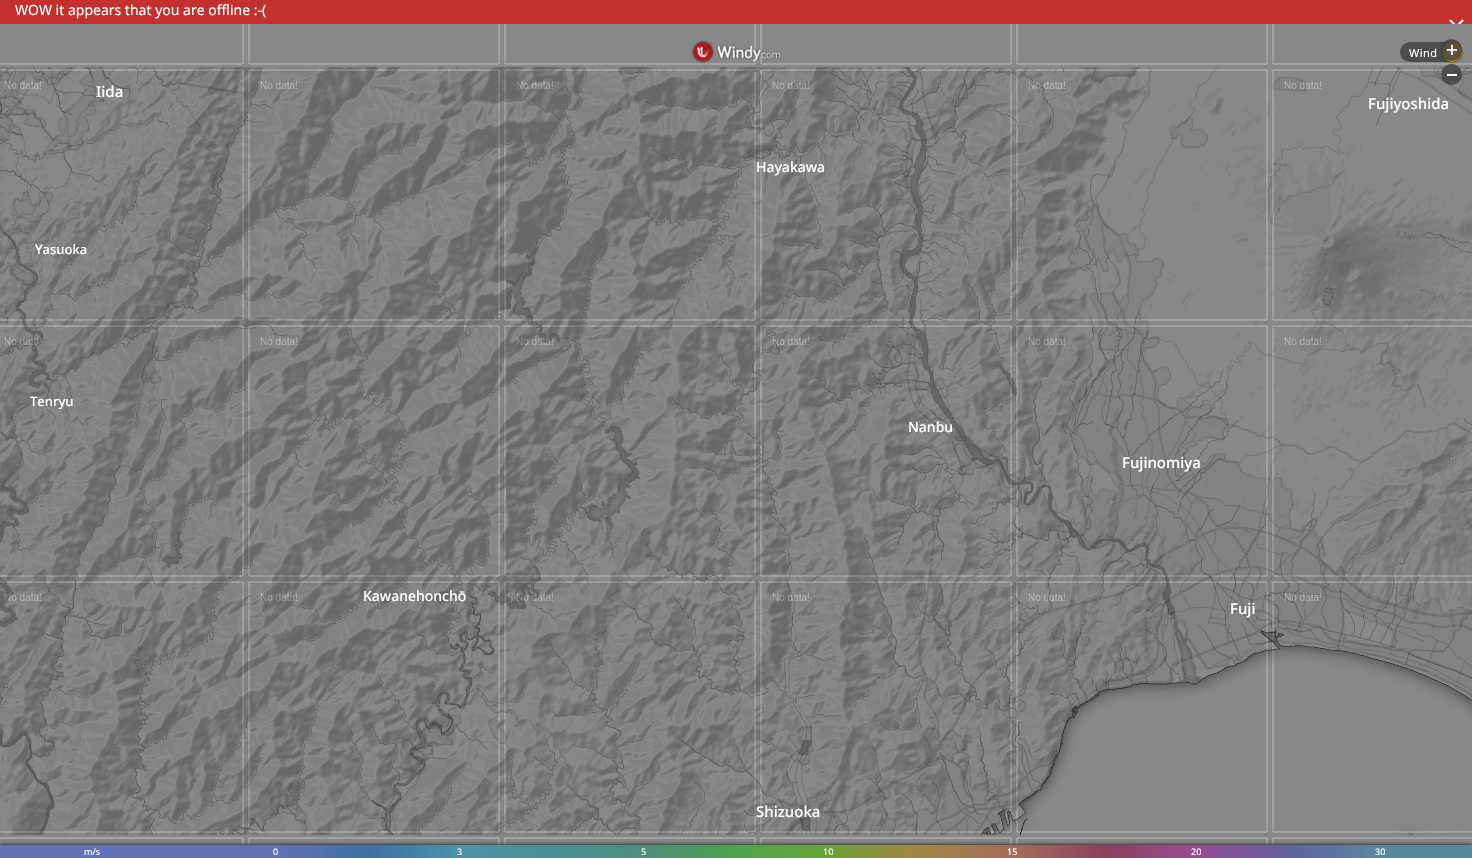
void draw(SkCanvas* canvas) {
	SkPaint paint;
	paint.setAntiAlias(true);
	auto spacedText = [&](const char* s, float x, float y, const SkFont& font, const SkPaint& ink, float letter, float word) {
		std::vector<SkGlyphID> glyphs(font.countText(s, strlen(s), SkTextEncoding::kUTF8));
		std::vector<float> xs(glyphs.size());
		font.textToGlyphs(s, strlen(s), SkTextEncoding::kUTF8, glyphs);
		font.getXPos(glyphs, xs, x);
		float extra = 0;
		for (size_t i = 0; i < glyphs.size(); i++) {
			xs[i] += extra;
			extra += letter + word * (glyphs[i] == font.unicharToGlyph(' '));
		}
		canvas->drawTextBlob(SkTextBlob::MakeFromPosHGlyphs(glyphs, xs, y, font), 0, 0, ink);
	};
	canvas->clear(0xffffffff);
	paint.setColor(0xffc42f2f);
	canvas->drawRect(SkRect::MakeXYWH(0, 0, 1472, 24), paint);
	SkFont f1(fontMgr->matchFamilyStyle("Noto Sans", SkFontStyle::Normal()), 14);
	f1.setSubpixel(true);
	paint.setColor(0xffffffff);
	canvas->drawString("WOW it appears that you are offline :-(", 15, 15, f1, paint);
	canvas->drawImageRect(SkImages::DeferredFromEncodedData(SkData::MakeFromFileName("img1.png")), SkRect::MakeXYWH(1449, 19, 15, 5), SkSamplingOptions());
	canvas->drawImageRect(SkImages::DeferredFromEncodedData(SkData::MakeFromFileName("img7.png")), SkRect::MakeXYWH(502, 24, 256, 43), SkSamplingOptions());
	canvas->drawImageRect(SkImages::DeferredFromEncodedData(SkData::MakeFromFileName("img2.png")), SkRect::MakeXYWH(691, 40, 24, 24), SkSamplingOptions());
	canvas->drawImageRect(SkImages::DeferredFromEncodedData(SkData::MakeFromFileName("img7.png")), SkRect::MakeXYWH(758, 24, 256, 43), SkSamplingOptions());
	canvas->drawImageRect(SkImages::DeferredFromEncodedData(SkData::MakeFromFileName("img3.png")), SkRect::MakeXYWH(716, 44, 66, 19), SkSamplingOptions());
	canvas->drawImageRect(SkImages::DeferredFromEncodedData(SkData::MakeFromFileName("img8.png")), SkRect::MakeXYWH(1270, 24, 202, 43), SkSamplingOptions());
	paint.setColor(0xff4f4c4c);
	canvas->drawRoundRect(SkRect::MakeXYWH(1400, 42, 62, 20), 10, 10, paint);
	SkFont f2(fontMgr->matchFamilyStyle("Noto Sans", SkFontStyle::Normal()), 11);
	f2.setSubpixel(true);
	paint.setColor(0xffffffff);
	spacedText("Wind", 1409, 57, f2, paint, 0.5, 0);
	paint.setColor(0xff000000);
	paint.setMaskFilter(SkMaskFilter::MakeBlur(kNormal_SkBlurStyle, 1));
	canvas->drawRoundRect(SkRect::MakeXYWH(1442, 42, 20, 20), 10, 10, paint);
	paint.setMaskFilter(nullptr);
	paint.setColor(0xffd49500);
	canvas->drawCircle(1452, 52, 10, paint);
	canvas->drawImageRect(SkImages::DeferredFromEncodedData(SkData::MakeFromFileName("img4.png")), SkRect::MakeXYWH(1446, 50, 11, 7), SkSamplingOptions());
	paint.setColor(0xd6444141);
	canvas->drawRoundRect(SkRect::MakeXYWH(1441, 39, 21, 22), 10.5, 10.5, paint);
	canvas->drawImageRect(SkImages::DeferredFromEncodedData(SkData::MakeFromFileName("img5.png")), SkRect::MakeXYWH(1446, 44, 12, 11), SkSamplingOptions());
	canvas->drawImageRect(SkImages::DeferredFromEncodedData(SkData::MakeFromFileName("img11.png")), SkRect::MakeXYWH(1270, 67, 202, 256), SkSamplingOptions());
	canvas->drawImageRect(SkImages::DeferredFromEncodedData(SkData::MakeFromFileName("img20.png")), SkRect::MakeXYWH(1270, 67, 202, 256), SkSamplingOptions());
	canvas->drawCircle(1451.5, 74.5, 10.5, paint);
	paint.setColor(0xffffffff);
	canvas->drawRect(SkRect::MakeXYWH(1447, 74, 10, 2), paint);
	canvas->drawImageRect(SkImages::DeferredFromEncodedData(SkData::MakeFromFileName("img6.png")), SkRect::MakeXYWH(0, 24, 246, 43), SkSamplingOptions());
	canvas->drawImageRect(SkImages::DeferredFromEncodedData(SkData::MakeFromFileName("img7.png")), SkRect::MakeXYWH(246, 24, 256, 43), SkSamplingOptions());
	canvas->drawImageRect(SkImages::DeferredFromEncodedData(SkData::MakeFromFileName("img7.png")), SkRect::MakeXYWH(1014, 24, 256, 43), SkSamplingOptions());
	canvas->drawImageRect(SkImages::DeferredFromEncodedData(SkData::MakeFromFileName("img9.png")), SkRect::MakeXYWH(0, 67, 246, 256), SkSamplingOptions());
	canvas->drawImageRect(SkImages::DeferredFromEncodedData(SkData::MakeFromFileName("img10.png")), SkRect::MakeXYWH(246, 67, 256, 256), SkSamplingOptions());
	canvas->drawImageRect(SkImages::DeferredFromEncodedData(SkData::MakeFromFileName("img10.png")), SkRect::MakeXYWH(502, 67, 256, 256), SkSamplingOptions());
	canvas->drawImageRect(SkImages::DeferredFromEncodedData(SkData::MakeFromFileName("img10.png")), SkRect::MakeXYWH(758, 67, 256, 256), SkSamplingOptions());
	canvas->drawImageRect(SkImages::DeferredFromEncodedData(SkData::MakeFromFileName("img10.png")), SkRect::MakeXYWH(1014, 67, 256, 256), SkSamplingOptions());
	canvas->drawImageRect(SkImages::DeferredFromEncodedData(SkData::MakeFromFileName("img9.png")), SkRect::MakeXYWH(0, 323, 246, 256), SkSamplingOptions());
	canvas->drawImageRect(SkImages::DeferredFromEncodedData(SkData::MakeFromFileName("img10.png")), SkRect::MakeXYWH(246, 323, 256, 256), SkSamplingOptions());
	canvas->drawImageRect(SkImages::DeferredFromEncodedData(SkData::MakeFromFileName("img10.png")), SkRect::MakeXYWH(502, 323, 256, 256), SkSamplingOptions());
	canvas->drawImageRect(SkImages::DeferredFromEncodedData(SkData::MakeFromFileName("img10.png")), SkRect::MakeXYWH(758, 323, 256, 256), SkSamplingOptions());
	canvas->drawImageRect(SkImages::DeferredFromEncodedData(SkData::MakeFromFileName("img10.png")), SkRect::MakeXYWH(1014, 323, 256, 256), SkSamplingOptions());
	canvas->drawImageRect(SkImages::DeferredFromEncodedData(SkData::MakeFromFileName("img11.png")), SkRect::MakeXYWH(1270, 323, 202, 256), SkSamplingOptions());
	canvas->drawImageRect(SkImages::DeferredFromEncodedData(SkData::MakeFromFileName("img9.png")), SkRect::MakeXYWH(0, 579, 246, 256), SkSamplingOptions());
	canvas->drawImageRect(SkImages::DeferredFromEncodedData(SkData::MakeFromFileName("img10.png")), SkRect::MakeXYWH(246, 579, 256, 256), SkSamplingOptions());
	canvas->drawImageRect(SkImages::DeferredFromEncodedData(SkData::MakeFromFileName("img10.png")), SkRect::MakeXYWH(502, 579, 256, 256), SkSamplingOptions());
	canvas->drawImageRect(SkImages::DeferredFromEncodedData(SkData::MakeFromFileName("img10.png")), SkRect::MakeXYWH(758, 579, 256, 256), SkSamplingOptions());
	canvas->drawImageRect(SkImages::DeferredFromEncodedData(SkData::MakeFromFileName("img10.png")), SkRect::MakeXYWH(1014, 579, 256, 256), SkSamplingOptions());
	canvas->drawImageRect(SkImages::DeferredFromEncodedData(SkData::MakeFromFileName("img11.png")), SkRect::MakeXYWH(1270, 579, 202, 256), SkSamplingOptions());
	canvas->drawImageRect(SkImages::DeferredFromEncodedData(SkData::MakeFromFileName("img12.png")), SkRect::MakeXYWH(0, 835, 246, 10), SkSamplingOptions());
	canvas->drawImageRect(SkImages::DeferredFromEncodedData(SkData::MakeFromFileName("img13.png")), SkRect::MakeXYWH(246, 835, 256, 10), SkSamplingOptions());
	canvas->drawImageRect(SkImages::DeferredFromEncodedData(SkData::MakeFromFileName("img13.png")), SkRect::MakeXYWH(502, 835, 256, 10), SkSamplingOptions());
	canvas->drawImageRect(SkImages::DeferredFromEncodedData(SkData::MakeFromFileName("img13.png")), SkRect::MakeXYWH(758, 835, 256, 10), SkSamplingOptions());
	canvas->drawImageRect(SkImages::DeferredFromEncodedData(SkData::MakeFromFileName("img13.png")), SkRect::MakeXYWH(1014, 835, 256, 10), SkSamplingOptions());
	canvas->drawImageRect(SkImages::DeferredFromEncodedData(SkData::MakeFromFileName("img14.png")), SkRect::MakeXYWH(1270, 835, 202, 10), SkSamplingOptions());
	canvas->drawImageRect(SkImages::DeferredFromEncodedData(SkData::MakeFromFileName("img15.png")), SkRect::MakeXYWH(0, 67, 246, 256), SkSamplingOptions());
	canvas->drawImageRect(SkImages::DeferredFromEncodedData(SkData::MakeFromFileName("img16.png")), SkRect::MakeXYWH(246, 67, 256, 256), SkSamplingOptions());
	canvas->drawImageRect(SkImages::DeferredFromEncodedData(SkData::MakeFromFileName("img17.png")), SkRect::MakeXYWH(502, 67, 256, 256), SkSamplingOptions());
	canvas->drawImageRect(SkImages::DeferredFromEncodedData(SkData::MakeFromFileName("img18.png")), SkRect::MakeXYWH(758, 67, 256, 256), SkSamplingOptions());
	canvas->drawImageRect(SkImages::DeferredFromEncodedData(SkData::MakeFromFileName("img19.png")), SkRect::MakeXYWH(1014, 67, 256, 256), SkSamplingOptions());
	canvas->drawImageRect(SkImages::DeferredFromEncodedData(SkData::MakeFromFileName("img21.png")), SkRect::MakeXYWH(0, 323, 246, 256), SkSamplingOptions());
	canvas->drawImageRect(SkImages::DeferredFromEncodedData(SkData::MakeFromFileName("img22.png")), SkRect::MakeXYWH(246, 323, 256, 256), SkSamplingOptions());
	canvas->drawImageRect(SkImages::DeferredFromEncodedData(SkData::MakeFromFileName("img23.png")), SkRect::MakeXYWH(502, 323, 256, 256), SkSamplingOptions());
	canvas->drawImageRect(SkImages::DeferredFromEncodedData(SkData::MakeFromFileName("img24.png")), SkRect::MakeXYWH(758, 323, 256, 256), SkSamplingOptions());
	canvas->drawImageRect(SkImages::DeferredFromEncodedData(SkData::MakeFromFileName("img25.png")), SkRect::MakeXYWH(1014, 323, 256, 256), SkSamplingOptions());
	canvas->drawImageRect(SkImages::DeferredFromEncodedData(SkData::MakeFromFileName("img26.png")), SkRect::MakeXYWH(1270, 323, 202, 256), SkSamplingOptions());
	canvas->drawImageRect(SkImages::DeferredFromEncodedData(SkData::MakeFromFileName("img27.png")), SkRect::MakeXYWH(0, 579, 246, 256), SkSamplingOptions());
	canvas->drawImageRect(SkImages::DeferredFromEncodedData(SkData::MakeFromFileName("img28.png")), SkRect::MakeXYWH(246, 579, 256, 256), SkSamplingOptions());
	canvas->drawImageRect(SkImages::DeferredFromEncodedData(SkData::MakeFromFileName("img29.png")), SkRect::MakeXYWH(502, 579, 256, 256), SkSamplingOptions());
	canvas->drawImageRect(SkImages::DeferredFromEncodedData(SkData::MakeFromFileName("img30.png")), SkRect::MakeXYWH(758, 579, 256, 256), SkSamplingOptions());
	canvas->drawImageRect(SkImages::DeferredFromEncodedData(SkData::MakeFromFileName("img31.png")), SkRect::MakeXYWH(1014, 579, 256, 256), SkSamplingOptions());
	canvas->drawImageRect(SkImages::DeferredFromEncodedData(SkData::MakeFromFileName("img32.png")), SkRect::MakeXYWH(1270, 579, 202, 256), SkSamplingOptions());
	SkFont f3(fontMgr->matchFamilyStyle("Noto Sans", SkFontStyle(500, SkFontStyle::kNormal_Width, SkFontStyle::kUpright_Slant)), 15);
	f3.setSubpixel(true);
	canvas->drawString("Iida", 96, 97, f3, paint);
	SkFont f4(fontMgr->matchFamilyStyle("Noto Sans", SkFontStyle(500, SkFontStyle::kNormal_Width, SkFontStyle::kUpright_Slant)), 13);
	f4.setSubpixel(true);
	canvas->drawString("Yasuoka", 35, 254, f4, paint);
	canvas->drawString("Fujiyoshida", 1368, 109, f3, paint);
	SkFont f5(fontMgr->matchFamilyStyle("Noto Sans", SkFontStyle(500, SkFontStyle::kNormal_Width, SkFontStyle::kUpright_Slant)), 14);
	f5.setSubpixel(true);
	canvas->drawString("Hayakawa", 756, 172, f5, paint);
	canvas->drawString("Tenryu", 30, 406, f4, paint);
	canvas->drawString("Nanbu", 908, 432, f5, paint);
	canvas->drawString("Fujinomiya", 1122, 468, f3, paint);
	canvas->drawString("Kawanehonchō", 363, 601, f5, paint);
	canvas->drawString("Fuji", 1230, 614, f3, paint);
	canvas->drawString("Shizuoka", 756, 817, f3, paint);
	paint.setColor(0xff000000);
	paint.setMaskFilter(SkMaskFilter::MakeBlur(kNormal_SkBlurStyle, 2));
	canvas->drawRect(SkRect::MakeXYWH(0, 845, 1472, 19), paint);
	paint.setMaskFilter(nullptr);
	{
		const SkColor colors[] = {0xff6271b8, 0xff6271b8, 0xff3d6ea3, 0xff4a94aa, 0xff4a9294, 0xff4d8e7c, 0xff4ca44c, 0xff67a436, 0xffa28740, 0xffa26d5c, 0xff8d3f5c, 0xff974b91, 0xff5f64a0, 0xff5b88a1, 0xff5b88a1};
		const float stops[] = {0, 0.19, 0.25, 0.31, 0.38, 0.44, 0.5, 0.56, 0.62, 0.69, 0.75, 0.81, 0.88, 0.94, 1};
		const SkPoint ends[] = {{0, 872}, {1472, 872}};
		paint.setShader(SkGradientShader::MakeLinear(ends, colors, stops, 15, SkTileMode::kClamp));
		paint.setAlpha(255);
	}
	canvas->drawRect(SkRect::MakeXYWH(0, 845, 1472, 13), paint);
	SkFont f6(fontMgr->matchFamilyStyle("Noto Sans", SkFontStyle::Normal()), 9);
	f6.setSubpixel(true);
	paint.setShader(nullptr);
	paint.setColor(0xffffffff);
	canvas->drawString("m/s", 84, 855, f6, paint);
	canvas->drawString("0", 273, 855, f6, paint);
	canvas->drawString("3", 457, 855, f6, paint);
	canvas->drawString("5", 641, 855, f6, paint);
	canvas->drawString("10", 823, 855, f6, paint);
	canvas->drawString("15", 1007, 855, f6, paint);
	canvas->drawString("20", 1191, 855, f6, paint);
	canvas->drawString("30", 1375, 855, f6, paint);
}
